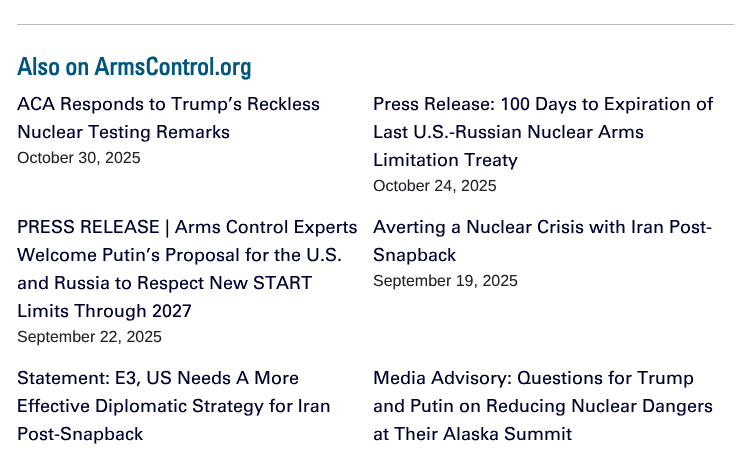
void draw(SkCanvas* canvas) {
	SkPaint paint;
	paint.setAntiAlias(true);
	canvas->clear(0xffffffff);
	paint.setColor(0xffbbbbbb);
	canvas->drawRect(SkRect::MakeXYWH(17, 24, 717, 1), paint);
	SkFont f1(fontMgr->matchFamilyStyle("Univers", SkFontStyle::Bold()), 24);
	f1.setSubpixel(true);
	paint.setColor(0xff005581);
	canvas->drawString("Also on ArmsControl.org", 17, 75, f1, paint);
	SkFont f2(fontMgr->matchFamilyStyle("Univers", SkFontStyle::Normal()), 18);
	f2.setSubpixel(true);
	paint.setColor(0xff000230);
	canvas->drawString("ACA Responds to Trump’s Reckless", 17, 110, f2, paint);
	canvas->drawString("Nuclear Testing Remarks", 17, 138, f2, paint);
	SkFont f3(fontMgr->matchFamilyStyle("Liberation Sans", SkFontStyle::Normal()), 16);
	f3.setSubpixel(true);
	paint.setColor(0xff212529);
	canvas->drawString("October 30, 2025", 17, 163, f3, paint);
	paint.setColor(0xff000230);
	canvas->drawString("Press Release: 100 Days to Expiration of", 373, 110, f2, paint);
	canvas->drawString("Last U.S.-Russian Nuclear Arms", 373, 138, f2, paint);
	canvas->drawString("Limitation Treaty", 373, 166, f2, paint);
	paint.setColor(0xff212529);
	canvas->drawString("October 24, 2025", 373, 191, f3, paint);
	paint.setColor(0xff000230);
	canvas->drawString("PRESS RELEASE | Arms Control Experts", 17, 233, f2, paint);
	canvas->drawString("Welcome Putin’s Proposal for the U.S.", 17, 261, f2, paint);
	canvas->drawString("and Russia to Respect New START", 17, 289, f2, paint);
	canvas->drawString("Limits Through 2027", 17, 317, f2, paint);
	paint.setColor(0xff212529);
	canvas->drawString("September 22, 2025", 17, 342, f3, paint);
	paint.setColor(0xff000230);
	canvas->drawString("Averting a Nuclear Crisis with Iran Post-", 373, 233, f2, paint);
	canvas->drawString("Snapback", 373, 261, f2, paint);
	paint.setColor(0xff212529);
	canvas->drawString("September 19, 2025", 373, 286, f3, paint);
	paint.setColor(0xff000230);
	canvas->drawString("Statement: E3, US Needs A More", 17, 384, f2, paint);
	canvas->drawString("Effective Diplomatic Strategy for Iran", 17, 412, f2, paint);
	canvas->drawString("Post-Snapback", 17, 440, f2, paint);
	canvas->drawString("Media Advisory: Questions for Trump", 373, 384, f2, paint);
	canvas->drawString("and Putin on Reducing Nuclear Dangers", 373, 412, f2, paint);
	canvas->drawString("at Their Alaska Summit", 373, 440, f2, paint);
}
